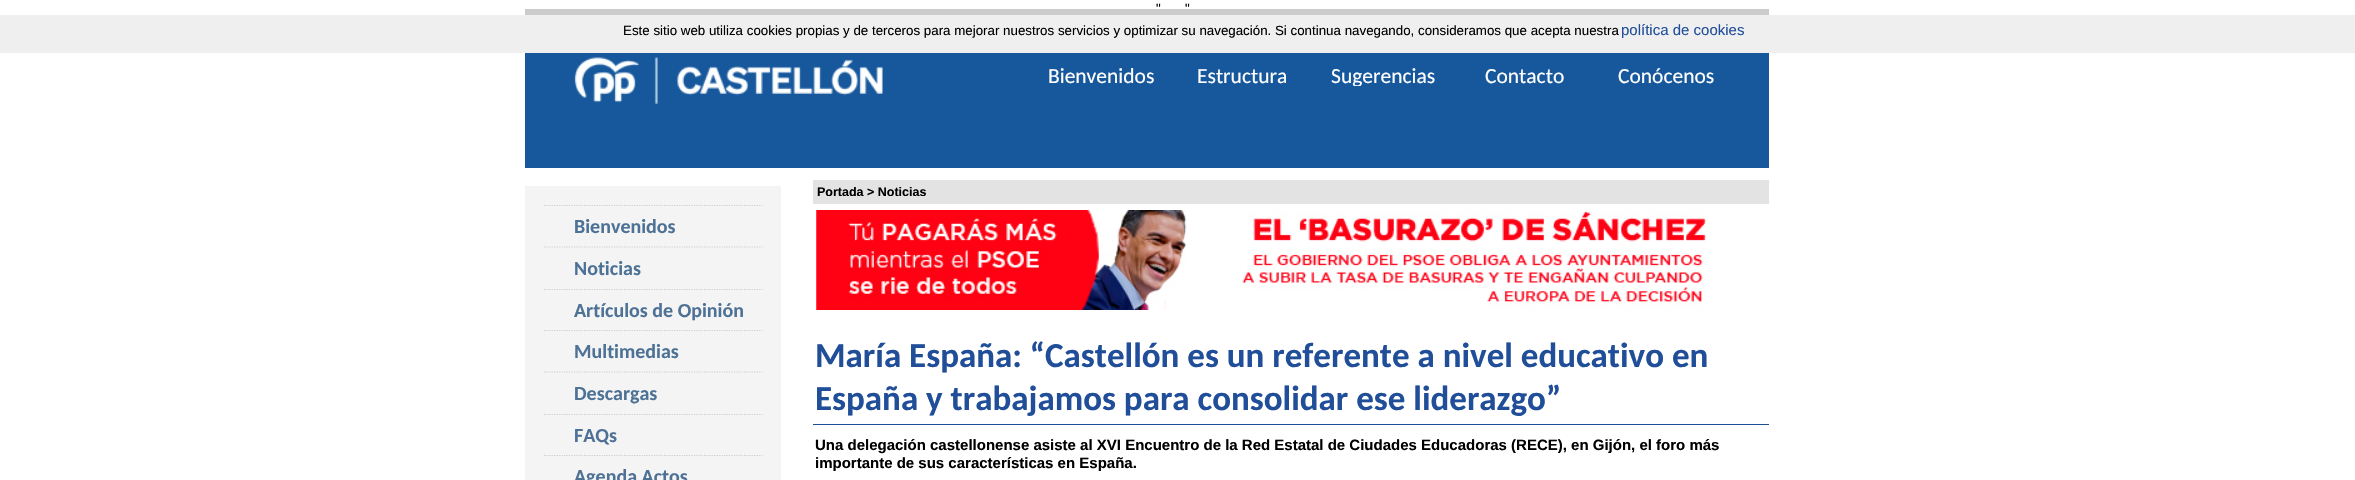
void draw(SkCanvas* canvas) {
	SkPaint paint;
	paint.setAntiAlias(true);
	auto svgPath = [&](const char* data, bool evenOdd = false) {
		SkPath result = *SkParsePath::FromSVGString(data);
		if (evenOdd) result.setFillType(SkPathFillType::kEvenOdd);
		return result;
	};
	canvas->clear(0xffffffff);
	SkFont f1(fontMgr->matchFamilyStyle("Liberation Sans", SkFontStyle::Normal()), 13.33);
	f1.setSubpixel(true);
	paint.setColor(0xff000000);
	canvas->drawString("\"", 1156, 13, f1, paint);
	canvas->drawString("\"", 1185, 13, f1, paint);
	paint.setColor(0xffefefef);
	canvas->drawRect(SkRect::MakeXYWH(0, 15, 2355, 38), paint);
	paint.setColor(0xff000000);
	canvas->drawString("Este sitio web utiliza cookies propias y de terceros para mejorar nuestros servicios y optimizar su navegación. Si continua navegando, consideramos que acepta nuestra", 623, 35, f1, paint);
	SkFont f2(fontMgr->matchFamilyStyle("Liberation Sans", SkFontStyle::Normal()), 15);
	f2.setSubpixel(true);
	paint.setColor(0xff204e99);
	canvas->drawString("política de cookies", 1621, 35, f2, paint);
	paint.setColor(0xffcccccc);
	canvas->drawRect(SkRect::MakeXYWH(525, 9, 1244, 6), paint);
	paint.setColor(0xff17589d);
	canvas->drawRect(SkRect::MakeXYWH(525, 53, 1244, 115), paint);
	canvas->drawImageRect(SkImages::DeferredFromEncodedData(SkData::MakeFromFileName("img1.png")), SkRect::MakeXYWH(574, 57, 309, 47), SkSamplingOptions());
	SkFont f3(fontMgr->matchFamilyStyle("Carlito", SkFontStyle::Normal()), 21.5);
	f3.setSubpixel(true);
	paint.setColor(0xffffffff);
	canvas->drawString("Bienvenidos", 1048, 83, f3, paint);
	canvas->drawString("Estructura", 1197, 83, f3, paint);
	canvas->save();
	canvas->clipRect(SkRect::MakeXYWH(1314, 49, 141, 37));
	canvas->drawString("Sugerencias", 1331, 83, f3, paint);
	canvas->restore();
	canvas->drawString("Contacto", 1485, 83, f3, paint);
	canvas->drawString("Conócenos", 1618, 83, f3, paint);
	paint.setColor(0xfff4f4f4);
	canvas->drawRect(SkRect::MakeXYWH(525, 186, 256, 294), paint);
	paint.setStroke(true);
	paint.setStrokeWidth(1.2);
	paint.setColor(0xffcccccc);
	paint.setPathEffect(SkDashPathEffect::Make({{1.25f, 1.25f}}, 0));
	canvas->drawPath(svgPath("M544 205.5H762.5"), paint);
	paint.setPathEffect(nullptr);
	SkFont f4(fontMgr->matchFamilyStyle("Carlito", SkFontStyle::Bold()), 20);
	f4.setSubpixel(true);
	paint.setStroke(false);
	paint.setColor(0xff4e7296);
	canvas->drawString("Bienvenidos", 574, 233, f4, paint);
	paint.setStroke(true);
	paint.setColor(0xffcccccc);
	paint.setPathEffect(SkDashPathEffect::Make({{1.25f, 1.25f}}, 0));
	canvas->drawPath(svgPath("M544 247H762.5"), paint);
	paint.setPathEffect(nullptr);
	paint.setStroke(false);
	paint.setColor(0xff4e7296);
	canvas->drawString("Noticias", 574, 275, f4, paint);
	paint.setStroke(true);
	paint.setColor(0xffcccccc);
	paint.setPathEffect(SkDashPathEffect::Make({{1.25f, 1.25f}}, 0));
	canvas->drawPath(svgPath("M544 289.5H762.5"), paint);
	paint.setPathEffect(nullptr);
	paint.setStroke(false);
	paint.setColor(0xff4e7296);
	canvas->drawString("Artículos de Opinión", 574, 317, f4, paint);
	paint.setStroke(true);
	paint.setColor(0xffcccccc);
	paint.setPathEffect(SkDashPathEffect::Make({{1.25f, 1.25f}}, 0));
	canvas->drawPath(svgPath("M544 330.5H762.5"), paint);
	paint.setPathEffect(nullptr);
	paint.setStroke(false);
	paint.setColor(0xff4e7296);
	canvas->drawString("Multimedias", 574, 358, f4, paint);
	paint.setStroke(true);
	paint.setColor(0xffcccccc);
	paint.setPathEffect(SkDashPathEffect::Make({{1.25f, 1.25f}}, 0));
	canvas->drawPath(svgPath("M544 372H762.5"), paint);
	paint.setPathEffect(nullptr);
	paint.setStroke(false);
	paint.setColor(0xff4e7296);
	canvas->drawString("Descargas", 574, 400, f4, paint);
	paint.setStroke(true);
	paint.setColor(0xffcccccc);
	paint.setPathEffect(SkDashPathEffect::Make({{1.25f, 1.25f}}, 0));
	canvas->drawPath(svgPath("M544 414.5H762.5"), paint);
	paint.setPathEffect(nullptr);
	paint.setStroke(false);
	paint.setColor(0xff4e7296);
	canvas->drawString("FAQs", 574, 442, f4, paint);
	paint.setStroke(true);
	paint.setColor(0xffcccccc);
	paint.setPathEffect(SkDashPathEffect::Make({{1.25f, 1.25f}}, 0));
	canvas->drawPath(svgPath("M544 455.5H762.5"), paint);
	paint.setPathEffect(nullptr);
	paint.setStroke(false);
	paint.setColor(0xff4e7296);
	canvas->drawString("Agenda Actos", 574, 483, f4, paint);
	paint.setColor(0xffe3e3e3);
	canvas->drawRect(SkRect::MakeXYWH(813, 180, 956, 24), paint);
	SkFont f5(fontMgr->matchFamilyStyle("Liberation Sans", SkFontStyle::Bold()), 12.5);
	f5.setSubpixel(true);
	paint.setColor(0xff000000);
	canvas->drawString("Portada > Noticias", 817, 196, f5, paint);
	canvas->drawImageRect(SkImages::DeferredFromEncodedData(SkData::MakeFromFileName("img2.png")), SkRect::MakeXYWH(816, 210, 890, 100), SkSamplingOptions());
	paint.setColor(0xff204e99);
	canvas->drawRect(SkRect::MakeXYWH(813, 424, 956, 1), paint);
	SkFont f6(fontMgr->matchFamilyStyle("Carlito", SkFontStyle::Bold()), 35);
	f6.setSubpixel(true);
	canvas->drawString("María España: “Castellón es un referente a nivel educativo en", 815, 367, f6, paint);
	canvas->drawString("España y trabajamos para consolidar ese liderazgo”", 815, 410, f6, paint);
	SkFont f7(fontMgr->matchFamilyStyle("Liberation Sans", SkFontStyle::Bold()), 15);
	f7.setSubpixel(true);
	paint.setColor(0xff000000);
	canvas->drawString("Una delegación castellonense asiste al XVI Encuentro de la Red Estatal de Ciudades Educadoras (RECE), en Gijón, el foro más", 815, 450, f7, paint);
	canvas->drawString("importante de sus características en España.", 815, 468, f7, paint);
}
